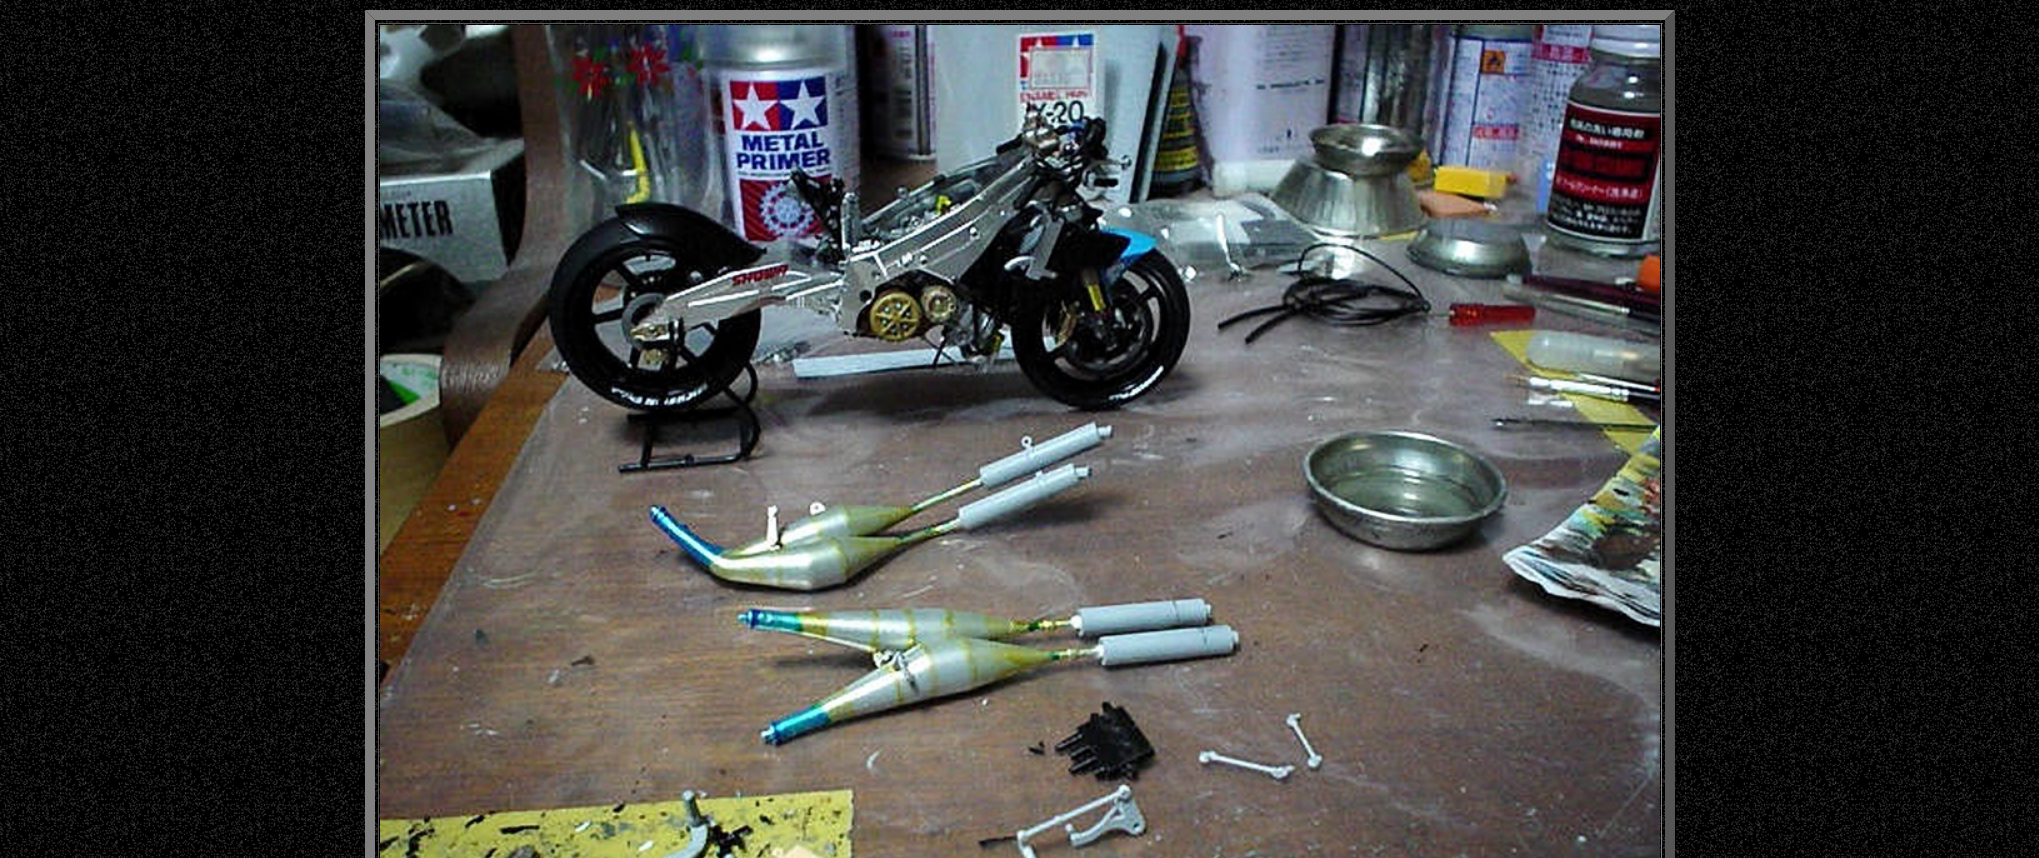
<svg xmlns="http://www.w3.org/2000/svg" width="2039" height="858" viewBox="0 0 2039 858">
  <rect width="100%" height="100%" fill="#ffffff"/>
  <image x="0" y="0" width="2039" height="858" href="img1.png"/>
  <path d="M365 10H1675L1665 20H375Z" fill="#808080"/>
  <path d="M1675 10V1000L1665 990V20Z" fill="#555555"/>
  <path d="M365 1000V10L375 20V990Z" fill="#808080"/>
  <rect x="378" y="23" width="1285" height="1" fill="#555555"/>
  <rect x="1661" y="23" width="1" height="835" fill="#808080"/>
  <rect x="378" y="23" width="1" height="835" fill="#555555"/>
  <image x="380" y="25" width="1280" height="833" href="img2.png"/>
</svg>
